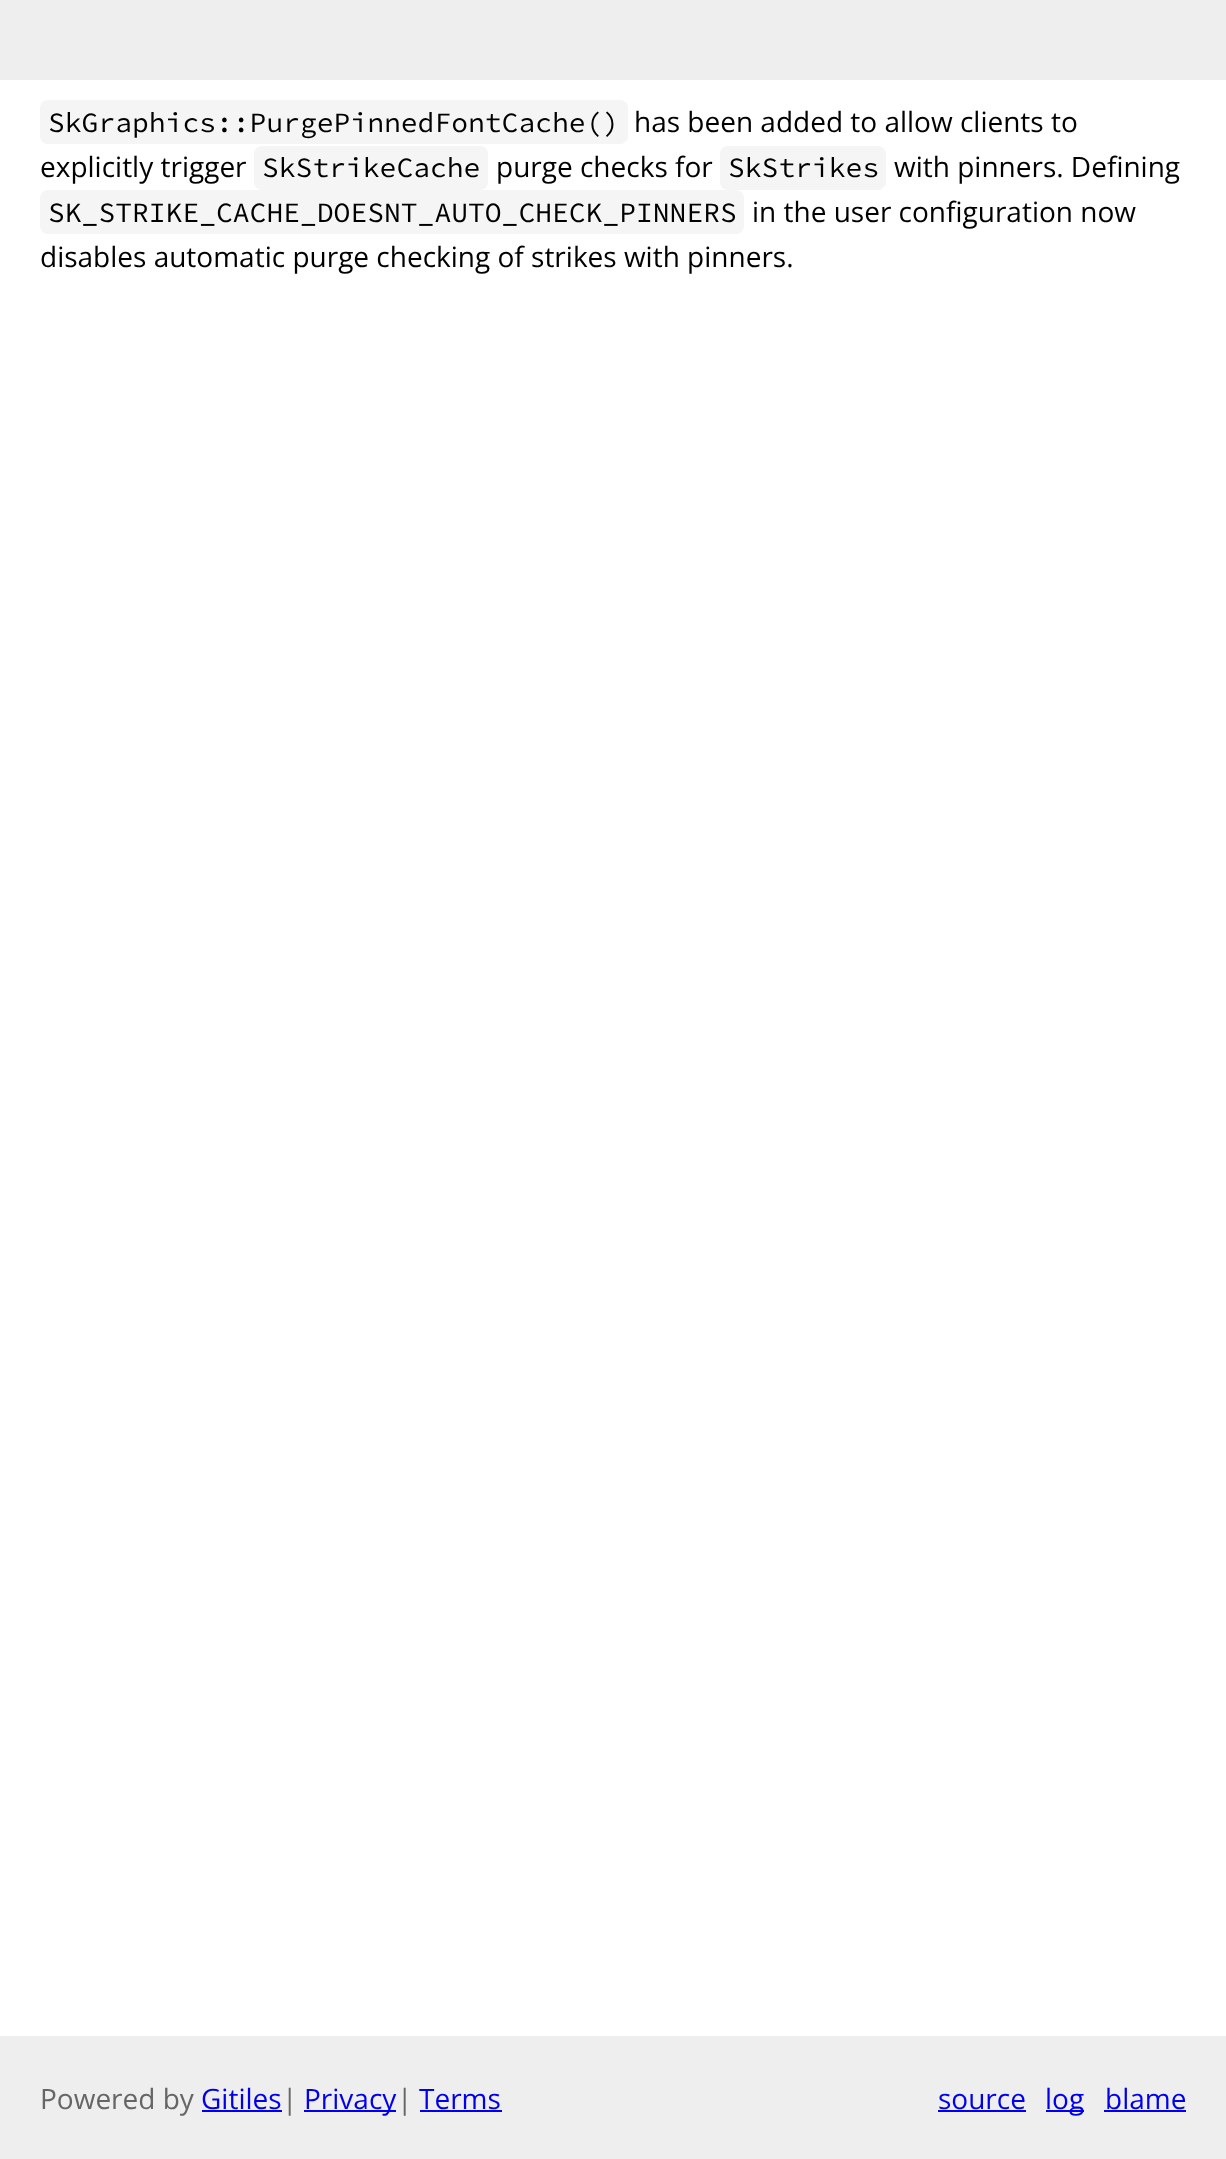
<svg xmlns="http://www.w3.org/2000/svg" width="1226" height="2159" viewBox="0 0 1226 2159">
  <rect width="100%" height="100%" fill="#ffffff"/>
  <rect x="0" y="0" width="1226" height="80" fill="#eeeeee"/>
  <rect x="40" y="100" width="588" height="44" rx="8" fill="#f5f5f5"/>
  <text x="48" y="132" font-family="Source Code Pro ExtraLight" font-size="28" font-weight="200" fill="#000000">SkGraphics::PurgePinnedFontCache()</text>
  <text x="634" y="132" font-family="Open Sans" font-size="28" fill="#000000">has been added to allow clients to</text>
  <text x="40" y="177" font-family="Open Sans" font-size="28" fill="#000000">explicitly trigger</text>
  <rect x="254" y="146" width="234" height="44" rx="8" fill="#f5f5f5"/>
  <text x="262" y="177" font-family="Source Code Pro ExtraLight" font-size="28" font-weight="200" fill="#000000">SkStrikeCache</text>
  <text x="496" y="177" font-family="Open Sans" font-size="28" fill="#000000">purge checks for</text>
  <rect x="720" y="146" width="166" height="44" rx="8" fill="#f5f5f5"/>
  <text x="728" y="177" font-family="Source Code Pro ExtraLight" font-size="28" font-weight="200" fill="#000000">SkStrikes</text>
  <text x="894" y="177" font-family="Open Sans" font-size="28" fill="#000000">with pinners. Defining</text>
  <rect x="40" y="190" width="704" height="44" rx="8" fill="#f5f5f5"/>
  <text x="48" y="222" font-family="Source Code Pro ExtraLight" font-size="28" font-weight="200" fill="#000000">SK_STRIKE_CACHE_DOESNT_AUTO_CHECK_PINNERS</text>
  <text x="752" y="222" font-family="Open Sans" font-size="28" fill="#000000">in the user configuration now</text>
  <text x="40" y="267" font-family="Open Sans" font-size="28" fill="#000000">disables automatic purge checking of strikes with pinners.</text>
  <rect x="0" y="2036" width="1226" height="123" fill="#eeeeee"/>
  <text x="40" y="2109" font-family="Open Sans" font-size="28" fill="#666666">Powered by</text>
  <text x="201" y="2109" font-family="Open Sans" font-size="28" fill="#0000ee">Gitiles</text>
  <rect x="202" y="2110" width="80" height="2" fill="#0000ee"/>
  <text x="282" y="2109" font-family="Open Sans" font-size="28" fill="#666666">|</text>
  <rect x="304" y="2110" width="92" height="2" fill="#0000ee"/>
  <text x="304" y="2109" font-family="Open Sans" font-size="28" fill="#0000ee">Privacy</text>
  <text x="397" y="2109" font-family="Open Sans" font-size="28" fill="#666666">|</text>
  <text x="419" y="2109" font-family="Open Sans" font-size="28" fill="#0000ee">Terms</text>
  <rect x="420" y="2110" width="82" height="2" fill="#0000ee"/>
  <text x="938" y="2109" font-family="Open Sans" font-size="28" fill="#0000ee">source</text>
  <rect x="938" y="2110" width="88" height="2" fill="#0000ee"/>
  <rect x="1046" y="2110" width="38" height="2" fill="#0000ee"/>
  <text x="1045" y="2109" font-family="Open Sans" font-size="28" fill="#0000ee">log</text>
  <text x="1105" y="2109" font-family="Open Sans" font-size="28" fill="#0000ee">blame</text>
  <rect x="1104" y="2110" width="82" height="2" fill="#0000ee"/>
</svg>
